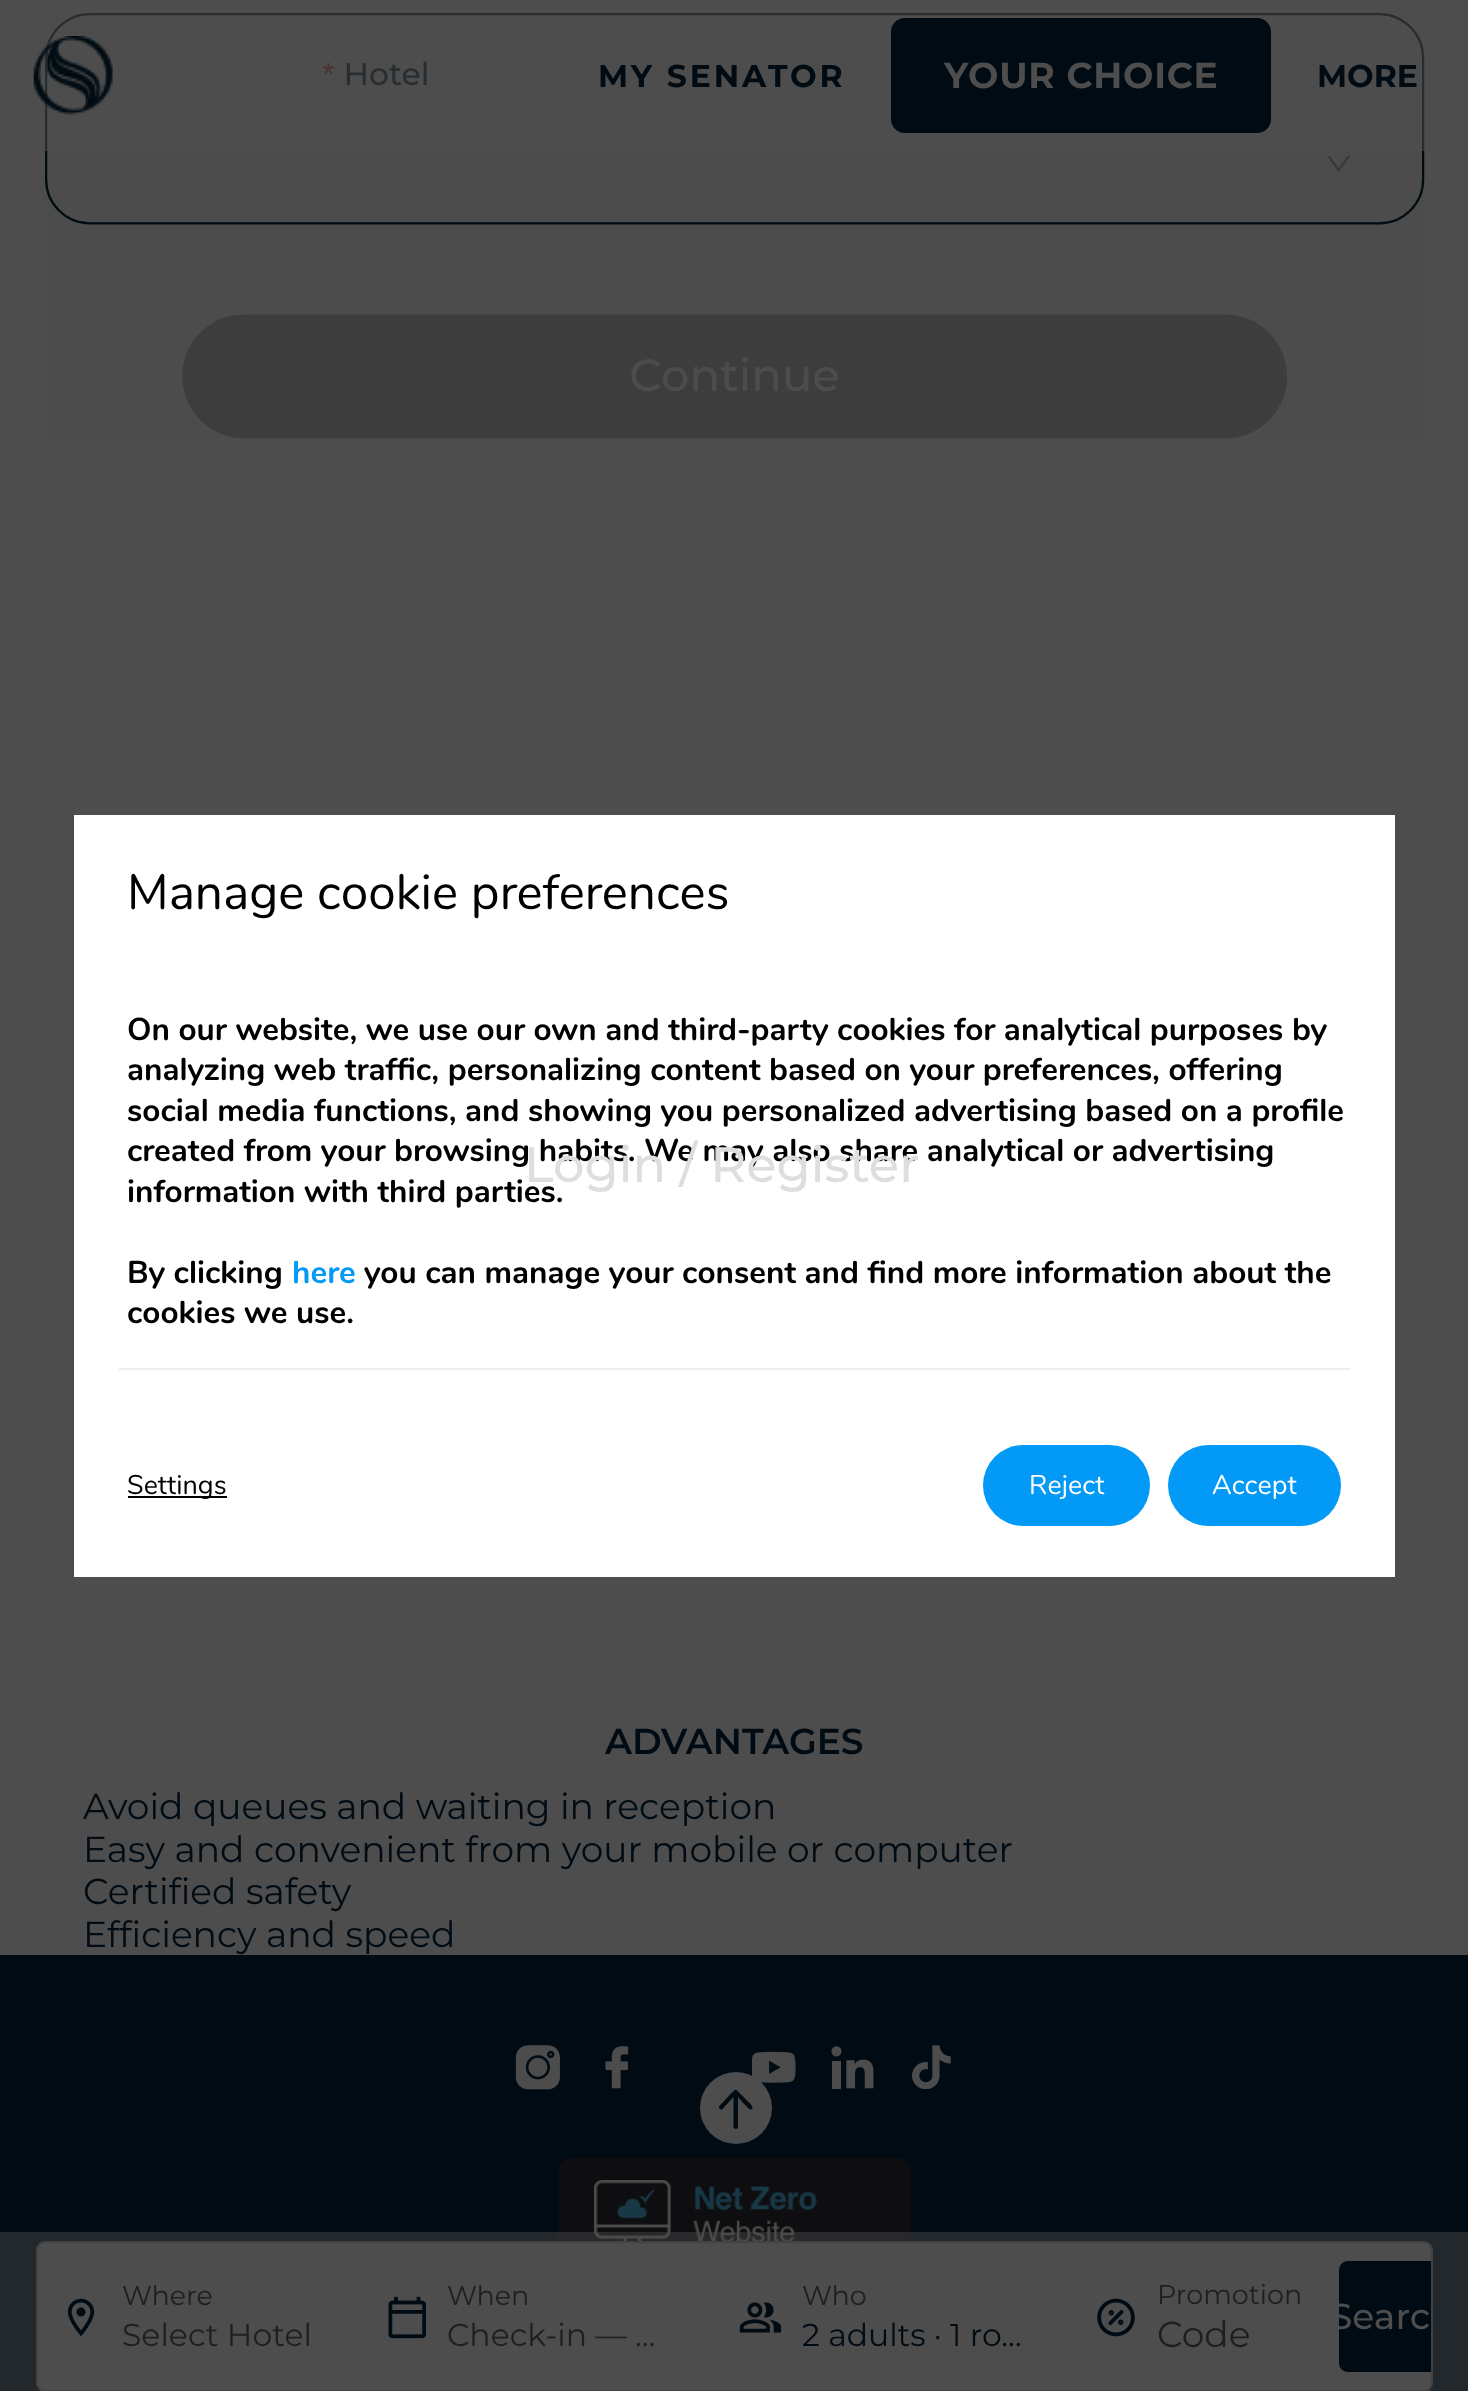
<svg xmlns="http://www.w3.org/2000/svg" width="1468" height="2391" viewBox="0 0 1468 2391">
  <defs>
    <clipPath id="clip1"><rect x="1339" y="2261" width="108" height="111" rx="9"/></clipPath>
  </defs>
  <rect width="100%" height="100%" fill="#4d4d4d"/>
  <image x="45" y="13" width="1380" height="426" href="img6.png"/>
  <rect x="45" y="13" width="1380" height="138" fill="#4d4d4d" fill-opacity="0.5"/>
  <image x="33" y="36" width="80" height="79" href="img1.png"/>
  <text x="598" y="87" font-family="Montserrat" font-size="31.5" font-weight="bold" letter-spacing="2.9" fill="#000b13">MY SENATOR</text>
  <rect x="891" y="18" width="380" height="115" rx="14" fill="#000b13"/>
  <text x="944" y="88" font-family="Montserrat" font-size="36" font-weight="bold" letter-spacing="0.75" fill="#4d4d4d">YOUR CHOICE</text>
  <text x="1317" y="87" font-family="Montserrat" font-size="31.5" font-weight="bold" fill="#000b13">MORE</text>
  <rect x="0" y="1955" width="1468" height="436" fill="#000b13"/>
  <image x="558" y="2157" width="354" height="84" href="img12.png"/>
  <rect x="0" y="2232" width="1468" height="159" fill="#4d4d4d" fill-opacity="0.44"/>
  <rect x="37" y="2242" width="1395" height="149" rx="8" fill="#4d4d4d" stroke="#424242" stroke-width="2"/>
  <image x="67" y="2298" width="28" height="39" href="img2.png"/>
  <text x="122" y="2305" font-family="Montserrat" font-size="27" fill="#1f1f1f">Where</text>
  <text x="122" y="2346" font-family="Montserrat" font-size="31.5" fill="#1f1f1f">Select Hotel</text>
  <image x="388" y="2296" width="38" height="43" href="img3.png"/>
  <text x="447" y="2305" font-family="Montserrat" font-size="27" fill="#1f1f1f">When</text>
  <text x="447" y="2346" font-family="Montserrat" font-size="31.5" fill="#1f1f1f">Check-in — …</text>
  <image x="739" y="2302" width="43" height="31" href="img4.png"/>
  <text x="802" y="2305" font-family="Montserrat" font-size="27" fill="#1f1f1f">Who</text>
  <text x="802" y="2346" font-family="Montserrat" font-size="31.5" fill="#000b13">2 adults · 1 ro…</text>
  <image x="1097" y="2298" width="38" height="39" href="img5.png"/>
  <text x="1157" y="2304" font-family="Montserrat" font-size="27" fill="#1f1f1f">Promotion</text>
  <text x="1157" y="2347" font-family="Montserrat" font-size="36" fill="#1f1f1f">Code</text>
  <path d="M1348 2261H1431V2372H1348C1343 2372 1339 2368 1339 2363V2270C1339 2265 1343 2261 1348 2261Z" fill="#000b13"/>
  <g clip-path="url(#clip1)">
    <text x="1330" y="2329" font-family="Montserrat" font-size="36" font-weight="500" fill="#4d4d4d">Searc</text>
  </g>
  <rect x="74" y="815" width="1321" height="762" fill="#ffffff"/>
  <text x="127" y="909" font-family="Nunito" font-size="49.5" fill="#000000">Manage cookie preferences</text>
  <text x="127" y="1040" font-family="Nunito" font-size="31.5" font-weight="bold" fill="#000000">On our website, we use our own and third-party cookies for analytical purposes by</text>
  <text x="127" y="1080" font-family="Nunito" font-size="31.5" font-weight="bold" fill="#000000">analyzing web traffic, personalizing content based on your preferences, offering</text>
  <text x="127" y="1121" font-family="Nunito" font-size="31.5" font-weight="bold" fill="#000000">social media functions, and showing you personalized advertising based on a profile</text>
  <text x="127" y="1161" font-family="Nunito" font-size="31.5" font-weight="bold" fill="#000000">created from your browsing habits. We may also share analytical or advertising</text>
  <text x="127" y="1202" font-family="Nunito" font-size="31.5" font-weight="bold" fill="#000000">information with third parties.</text>
  <text x="127" y="1283" font-family="Nunito" font-size="31.5" font-weight="bold" fill="#000000">By clicking</text>
  <text x="292" y="1283" font-family="Nunito" font-size="31.5" font-weight="bold" fill="#0399f6">here</text>
  <text x="364" y="1283" font-family="Nunito" font-size="31.5" font-weight="bold" fill="#000000">you can manage your consent and find more information about the</text>
  <text x="127" y="1323" font-family="Nunito" font-size="31.5" font-weight="bold" fill="#000000">cookies we use.</text>
  <rect x="119" y="1368" width="1231" height="2" fill="#eeeeee"/>
  <rect x="128" y="1496" width="99" height="2" fill="#000000"/>
  <text x="127" y="1494" font-family="Nunito" font-size="27" fill="#000000">Settings</text>
  <rect x="983" y="1445" width="167" height="81" rx="40.5" fill="#0399f6"/>
  <text x="1029" y="1494" font-family="Nunito" font-size="27" fill="#ffffff">Reject</text>
  <rect x="1168" y="1445" width="173" height="81" rx="40.5" fill="#0399f6"/>
  <text x="1212" y="1494" font-family="Nunito" font-size="27" fill="#ffffff">Accept</text>
  <text x="524" y="1182" font-family="Montserrat" font-size="49.5" font-weight="500" fill="#dedede">Login / Register</text>
  <text x="605" y="1754" font-family="Montserrat" font-size="36" font-weight="600" fill="#000b13">ADVANTAGES</text>
  <text x="83" y="1819" font-family="Montserrat" font-size="36" fill="#000b13">Avoid queues and waiting in reception</text>
  <text x="83" y="1862" font-family="Montserrat" font-size="36" fill="#000b13">Easy and convenient from your mobile or computer</text>
  <text x="83" y="1904" font-family="Montserrat" font-size="36" fill="#000b13">Certified safety</text>
  <text x="83" y="1947" font-family="Montserrat" font-size="36" fill="#000b13">Efficiency and speed</text>
  <image x="515" y="2045" width="45" height="45" href="img7.png"/>
  <image x="605" y="2046" width="24" height="43" href="img8.png"/>
  <image x="752" y="2051" width="44" height="32" href="img9.png"/>
  <image x="831" y="2046" width="43" height="43" href="img10.png"/>
  <image x="912" y="2045" width="39" height="44" href="img11.png"/>
  <circle cx="736" cy="2108" r="36" fill="#4d4d4d"/>
  <path d="M719.5 2106L731.5 2093C736 2088.5 735.5 2088.5 739.5 2093L747 2100.5C748.5 2102 752.5 2105.5 752.5 2107.5L752 2109C749.5 2111 746.5 2106 745 2105L738 2097V2127C738 2129 735.5 2129.5 734.5 2128.5L733.5 2127.5V2097L722 2109.5C720 2110 718 2107.5 719.5 2106Z" fill="#000b13"/>
</svg>
